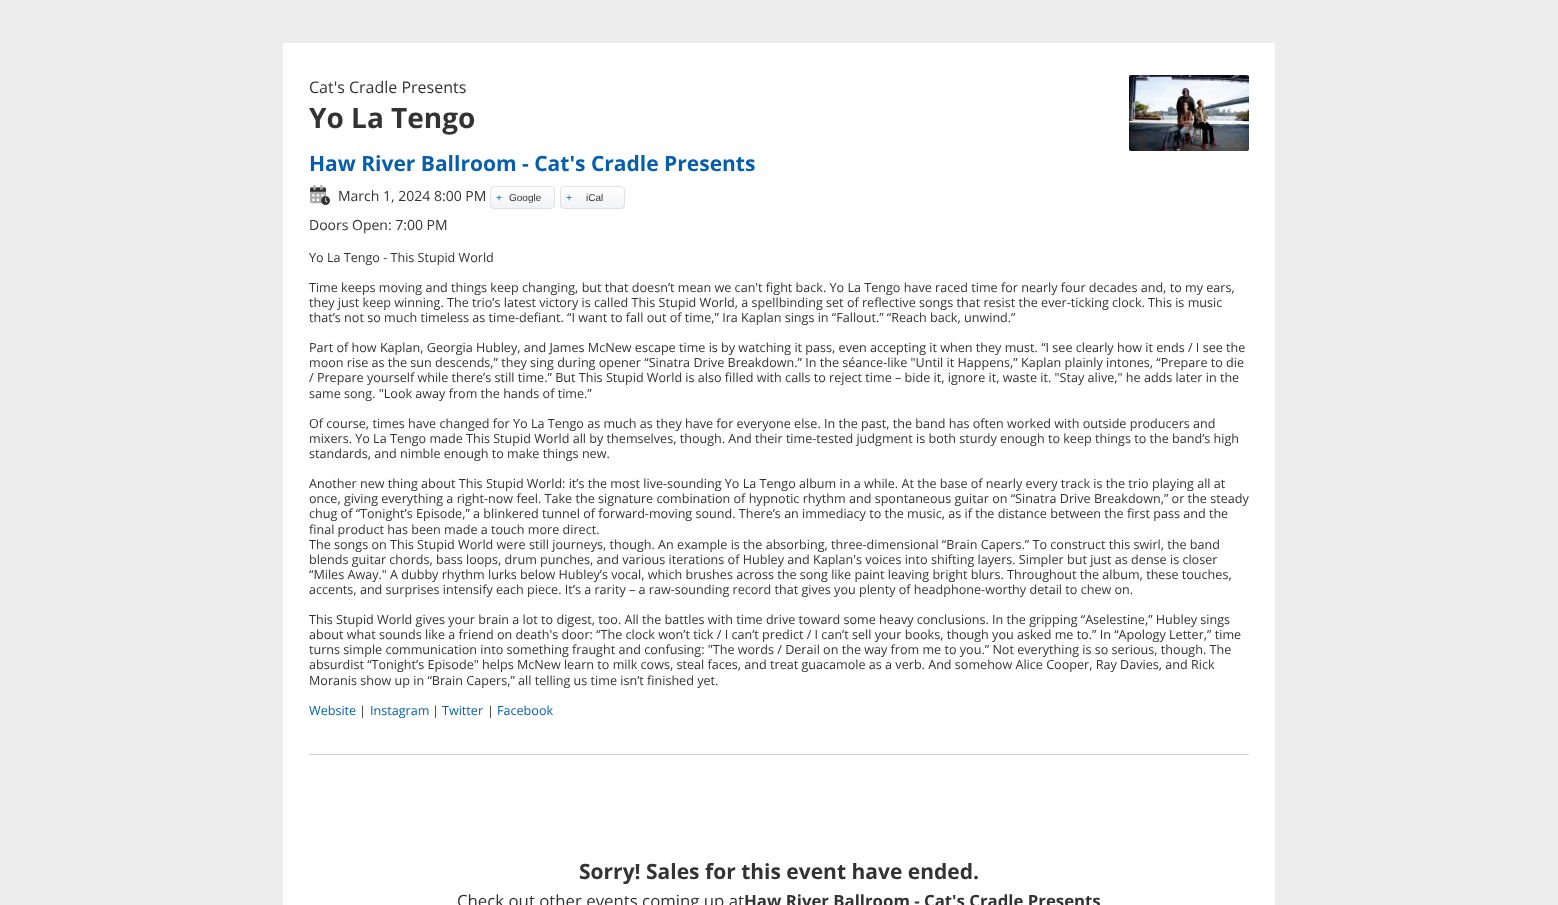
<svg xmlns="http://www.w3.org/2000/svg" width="1558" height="905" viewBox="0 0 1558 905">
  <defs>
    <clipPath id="clip1"><rect x="490" y="186" width="65" height="23" rx="4"/></clipPath>
    <linearGradient id="g1" gradientUnits="userSpaceOnUse" x1="523" y1="187" x2="523" y2="208"><stop offset="0" stop-color="#ffffff"/><stop offset="1" stop-color="#f1f2f7"/></linearGradient>
    <clipPath id="clip2"><rect x="560" y="186" width="65" height="23" rx="4"/></clipPath>
    <linearGradient id="g2" gradientUnits="userSpaceOnUse" x1="593" y1="187" x2="593" y2="208"><stop offset="0" stop-color="#ffffff"/><stop offset="1" stop-color="#f1f2f7"/></linearGradient>
  </defs>
  <rect width="100%" height="100%" fill="#ededed"/>
  <rect x="283" y="43" width="992" height="862" fill="#ffffff"/>
  <text x="309" y="93" font-family="Open Sans" font-size="16" fill="#333333">Cat's Cradle Presents</text>
  <image x="1129" y="75" width="120" height="76" href="img1.png"/>
  <text x="309" y="128" font-family="Open Sans" font-size="28" font-weight="bold" fill="#333333">Yo La Tengo</text>
  <text x="309" y="171" font-family="Open Sans" font-size="21" font-weight="bold" fill="#065fae">Haw River Ballroom - Cat's Cradle Presents</text>
  <image x="310" y="187" width="16" height="5" href="img3.png"/>
  <image x="310" y="185" width="16" height="19" href="img2.png"/>
  <image x="321" y="196" width="9" height="9" href="img4.png"/>
  <text x="338" y="201" font-family="Open Sans" font-size="14" fill="#333333">March 1, 2024 8:00 PM</text>
  <g clip-path="url(#clip1)">
    <rect x="490" y="187" width="65" height="21" fill="url(#g1)"/>
  </g>
  <rect x="490.5" y="186.5" width="64" height="22" rx="3.5" fill="none" stroke="#e1e1e1"/>
  <text x="496" y="201" font-family="Liberation Sans" font-size="10" font-style="italic" fill="#065fae">+</text>
  <text x="509" y="201" font-family="Liberation Sans" font-size="10" fill="#333333">Google</text>
  <g clip-path="url(#clip2)">
    <rect x="560" y="187" width="65" height="21" fill="url(#g2)"/>
  </g>
  <rect x="560.5" y="186.5" width="64" height="22" rx="3.5" fill="none" stroke="#e1e1e1"/>
  <text x="566" y="201" font-family="Liberation Sans" font-size="10" font-style="italic" fill="#065fae">+</text>
  <text x="586" y="201" font-family="Liberation Sans" font-size="10" fill="#333333">iCal</text>
  <text x="309" y="230" font-family="Open Sans" font-size="14" fill="#333333">Doors Open: 7:00 PM</text>
  <text x="309" y="262" font-family="Open Sans" font-size="12.6" fill="#333333">Yo La Tengo - This Stupid World</text>
  <text x="309" y="292" font-family="Open Sans" font-size="12.6" fill="#333333">Time keeps moving and things keep changing, but that doesn’t mean we can't fight back. Yo La Tengo have raced time for nearly four decades and, to my ears,</text>
  <text x="309" y="307" font-family="Open Sans" font-size="12.6" fill="#333333">they just keep winning. The trio’s latest victory is called This Stupid World, a spellbinding set of reflective songs that resist the ever-ticking clock. This is music</text>
  <text x="309" y="322" font-family="Open Sans" font-size="12.6" fill="#333333">that’s not so much timeless as time-defiant. “I want to fall out of time,” Ira Kaplan sings in “Fallout.” “Reach back, unwind.”</text>
  <text x="309" y="352" font-family="Open Sans" font-size="12.6" fill="#333333">Part of how Kaplan, Georgia Hubley, and James McNew escape time is by watching it pass, even accepting it when they must. “I see clearly how it ends / I see the</text>
  <text x="309" y="367" font-family="Open Sans" font-size="12.6" fill="#333333">moon rise as the sun descends,” they sing during opener “Sinatra Drive Breakdown.” In the séance-like "Until it Happens,” Kaplan plainly intones, “Prepare to die</text>
  <text x="309" y="382" font-family="Open Sans" font-size="12.6" fill="#333333">/ Prepare yourself while there’s still time.” But This Stupid World is also filled with calls to reject time – bide it, ignore it, waste it. "Stay alive," he adds later in the</text>
  <text x="309" y="398" font-family="Open Sans" font-size="12.6" fill="#333333">same song. "Look away from the hands of time.”</text>
  <text x="309" y="428" font-family="Open Sans" font-size="12.6" fill="#333333">Of course, times have changed for Yo La Tengo as much as they have for everyone else. In the past, the band has often worked with outside producers and</text>
  <text x="309" y="443" font-family="Open Sans" font-size="12.6" fill="#333333">mixers. Yo La Tengo made This Stupid World all by themselves, though. And their time-tested judgment is both sturdy enough to keep things to the band’s high</text>
  <text x="309" y="458" font-family="Open Sans" font-size="12.6" fill="#333333">standards, and nimble enough to make things new.</text>
  <text x="309" y="488" font-family="Open Sans" font-size="12.6" fill="#333333">Another new thing about This Stupid World: it’s the most live-sounding Yo La Tengo album in a while. At the base of nearly every track is the trio playing all at</text>
  <text x="309" y="503" font-family="Open Sans" font-size="12.6" fill="#333333">once, giving everything a right-now feel. Take the signature combination of hypnotic rhythm and spontaneous guitar on “Sinatra Drive Breakdown,” or the steady</text>
  <text x="309" y="518" font-family="Open Sans" font-size="12.6" fill="#333333">chug of “Tonight’s Episode,” a blinkered tunnel of forward-moving sound. There’s an immediacy to the music, as if the distance between the first pass and the</text>
  <text x="309" y="534" font-family="Open Sans" font-size="12.6" fill="#333333">final product has been made a touch more direct.</text>
  <text x="309" y="549" font-family="Open Sans" font-size="12.6" fill="#333333">The songs on This Stupid World were still journeys, though. An example is the absorbing, three-dimensional “Brain Capers.” To construct this swirl, the band</text>
  <text x="309" y="564" font-family="Open Sans" font-size="12.6" fill="#333333">blends guitar chords, bass loops, drum punches, and various iterations of Hubley and Kaplan's voices into shifting layers. Simpler but just as dense is closer</text>
  <text x="309" y="579" font-family="Open Sans" font-size="12.6" fill="#333333">“Miles Away." A dubby rhythm lurks below Hubley’s vocal, which brushes across the song like paint leaving bright blurs. Throughout the album, these touches,</text>
  <text x="309" y="594" font-family="Open Sans" font-size="12.6" fill="#333333">accents, and surprises intensify each piece. It’s a rarity – a raw-sounding record that gives you plenty of headphone-worthy detail to chew on.</text>
  <text x="309" y="624" font-family="Open Sans" font-size="12.6" fill="#333333">This Stupid World gives your brain a lot to digest, too. All the battles with time drive toward some heavy conclusions. In the gripping “Aselestine,” Hubley sings</text>
  <text x="309" y="639" font-family="Open Sans" font-size="12.6" fill="#333333">about what sounds like a friend on death's door: “The clock won’t tick / I can’t predict / I can’t sell your books, though you asked me to.” In “Apology Letter,” time</text>
  <text x="309" y="654" font-family="Open Sans" font-size="12.6" fill="#333333">turns simple communication into something fraught and confusing: "The words / Derail on the way from me to you.” Not everything is so serious, though. The</text>
  <text x="309" y="669" font-family="Open Sans" font-size="12.6" fill="#333333">absurdist “Tonight’s Episode" helps McNew learn to milk cows, steal faces, and treat guacamole as a verb. And somehow Alice Cooper, Ray Davies, and Rick</text>
  <text x="309" y="685" font-family="Open Sans" font-size="12.6" fill="#333333">Moranis show up in “Brain Capers,” all telling us time isn’t finished yet.</text>
  <text x="309" y="715" font-family="Open Sans" font-size="12.6" fill="#065fae">Website</text>
  <text x="359" y="715" font-family="Open Sans" font-size="12.6" fill="#333333">|</text>
  <text x="370" y="715" font-family="Open Sans" font-size="12.6" fill="#065fae">Instagram</text>
  <text x="432" y="715" font-family="Open Sans" font-size="12.6" fill="#333333">|</text>
  <text x="442" y="715" font-family="Open Sans" font-size="12.6" fill="#065fae">Twitter</text>
  <text x="487" y="715" font-family="Open Sans" font-size="12.6" fill="#333333">|</text>
  <text x="497" y="715" font-family="Open Sans" font-size="12.6" fill="#065fae">Facebook</text>
  <rect x="309" y="754" width="940" height="1" fill="#d0d0d0"/>
  <text x="579" y="879" font-family="Open Sans" font-size="21" font-weight="bold" fill="#333333">Sorry! Sales for this event have ended.</text>
  <text x="457" y="907" font-family="Open Sans" font-size="16.8" fill="#333333">Check out other events coming up at</text>
  <text x="744" y="907" font-family="Open Sans" font-size="16.8" font-weight="bold" fill="#333333">Haw River Ballroom - Cat's Cradle Presents</text>
</svg>
